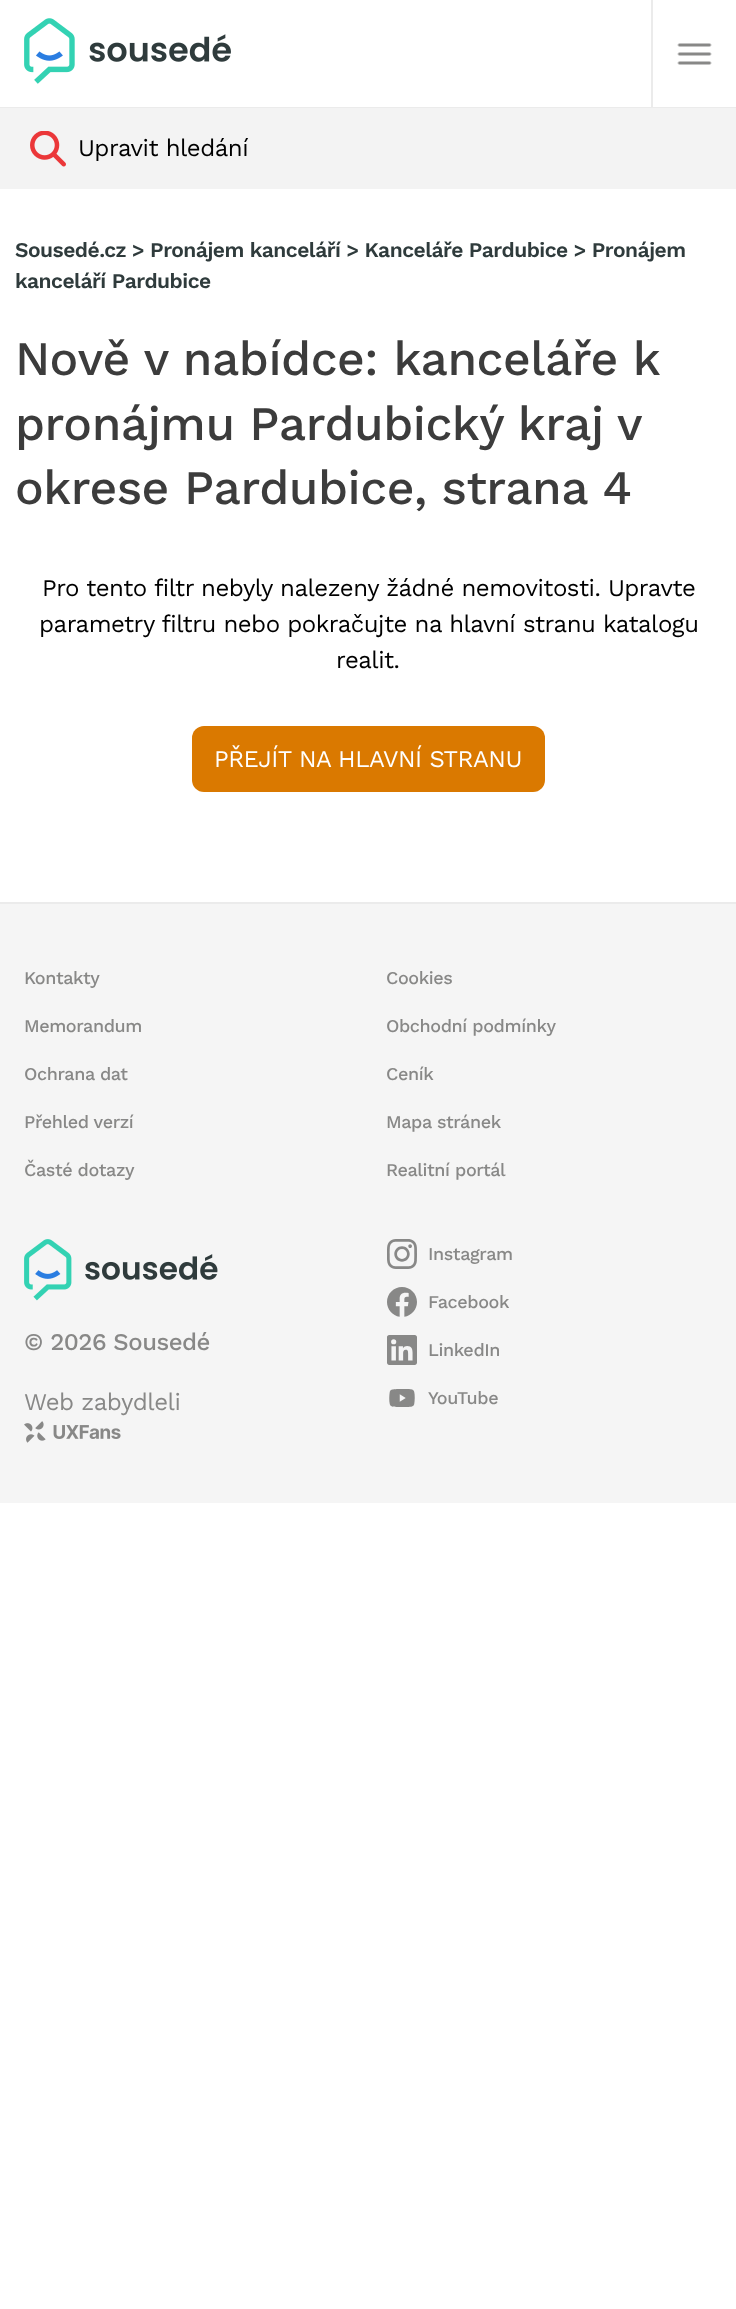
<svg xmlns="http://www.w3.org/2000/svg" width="736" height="2309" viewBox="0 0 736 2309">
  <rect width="100%" height="100%" fill="#ffffff"/>
  <rect x="0" y="107" width="736" height="1" fill="#ebebeb"/>
  <image x="24" y="18" width="207" height="66" href="img1.png"/>
  <rect x="651" y="0" width="2" height="107" fill="#ebebeb"/>
  <image x="677" y="43" width="35" height="22" href="img2.png"/>
  <rect x="0" y="108" width="736" height="81" fill="#f3f3f3"/>
  <image x="30" y="131" width="36" height="36" href="img3.png"/>
  <text x="78" y="156" font-family="Work Sans" font-size="24" letter-spacing="-0.5" fill="#000000">Upravit hledání</text>
  <text x="15" y="257" font-family="Work Sans" font-size="21" font-weight="600" letter-spacing="-0.5" fill="#2f3b3c">Sousedé.cz &gt; Pronájem kanceláří &gt; Kanceláře Pardubice &gt; Pronájem</text>
  <text x="15" y="288" font-family="Work Sans" font-size="21" font-weight="600" letter-spacing="-0.5" fill="#2f3b3c">kanceláří Pardubice</text>
  <text x="15" y="375" font-family="Work Sans" font-size="48" font-weight="500" letter-spacing="-0.5" fill="#3c3c3c">Nově v nabídce: kanceláře k</text>
  <text x="15" y="440" word-spacing="-0.5" font-family="Work Sans" font-size="48" font-weight="500" letter-spacing="-0.5" fill="#3c3c3c">pronájmu Pardubický kraj v</text>
  <text x="15" y="504" font-family="Work Sans" font-size="48" font-weight="500" letter-spacing="-0.5" fill="#3c3c3c">okrese Pardubice, strana 4</text>
  <text x="42" y="596" font-family="Work Sans" font-size="24" letter-spacing="-0.5" fill="#000000">Pro tento filtr nebyly nalezeny žádné nemovitosti. Upravte</text>
  <text x="39" y="632" font-family="Work Sans" font-size="24" letter-spacing="-0.5" fill="#000000">parametry filtru nebo pokračujte na hlavní stranu katalogu</text>
  <text x="336" y="668" font-family="Work Sans" font-size="24" letter-spacing="-0.5" fill="#000000">realit.</text>
  <rect x="192" y="726" width="353" height="66" rx="12" fill="#da7900"/>
  <text x="214" y="767" font-family="Work Sans" font-size="24" letter-spacing="-0.5" fill="#ffffff">PŘEJÍT NA HLAVNÍ STRANU</text>
  <rect x="0" y="904" width="736" height="599" fill="#f5f5f5"/>
  <rect x="0" y="902" width="736" height="2" fill="#ebebeb"/>
  <text x="24" y="984" font-family="Work Sans" font-size="18" font-weight="500" letter-spacing="-0.4" fill="#888887">Kontakty</text>
  <text x="386" y="984" font-family="Work Sans" font-size="18" font-weight="500" letter-spacing="-0.4" fill="#888887">Cookies</text>
  <text x="24" y="1032" font-family="Work Sans" font-size="18" font-weight="500" letter-spacing="-0.4" fill="#888887">Memorandum</text>
  <text x="386" y="1032" font-family="Work Sans" font-size="18" font-weight="500" letter-spacing="-0.4" fill="#888887">Obchodní podmínky</text>
  <text x="24" y="1080" font-family="Work Sans" font-size="18" font-weight="500" letter-spacing="-0.4" fill="#888887">Ochrana dat</text>
  <text x="386" y="1080" font-family="Work Sans" font-size="18" font-weight="500" letter-spacing="-0.4" fill="#888887">Ceník</text>
  <text x="24" y="1128" font-family="Work Sans" font-size="18" font-weight="500" letter-spacing="-0.4" fill="#888887">Přehled verzí</text>
  <text x="386" y="1128" font-family="Work Sans" font-size="18" font-weight="500" letter-spacing="-0.4" fill="#888887">Mapa stránek</text>
  <text x="24" y="1176" font-family="Work Sans" font-size="18" font-weight="500" letter-spacing="-0.4" fill="#888887">Časté dotazy</text>
  <text x="386" y="1176" font-family="Work Sans" font-size="18" font-weight="500" letter-spacing="-0.4" fill="#888887">Realitní portál</text>
  <image x="24" y="1239" width="194" height="62" href="img4.png"/>
  <text x="24" y="1350" font-family="Work Sans" font-size="24" font-weight="500" letter-spacing="-0.5" fill="#888887">© 2026 Sousedé</text>
  <text x="24" y="1410" font-family="Work Sans" font-size="24" letter-spacing="-0.5" fill="#888887">Web zabydleli</text>
  <image x="24" y="1421" width="97" height="22" href="img5.png"/>
  <image x="387" y="1239" width="30" height="30" href="img6.png"/>
  <text x="428" y="1260" font-family="Work Sans" font-size="18" font-weight="500" letter-spacing="-0.4" fill="#888887">Instagram</text>
  <image x="387" y="1287" width="30" height="30" href="img7.png"/>
  <text x="428" y="1308" font-family="Work Sans" font-size="18" font-weight="500" letter-spacing="-0.4" fill="#888887">Facebook</text>
  <image x="387" y="1335" width="30" height="30" href="img8.png"/>
  <text x="428" y="1356" font-family="Work Sans" font-size="18" font-weight="500" letter-spacing="-0.4" fill="#888887">LinkedIn</text>
  <image x="389" y="1389" width="26" height="18" href="img9.png"/>
  <text x="428" y="1404" font-family="Work Sans" font-size="18" font-weight="500" letter-spacing="-0.4" fill="#888887">YouTube</text>
</svg>
